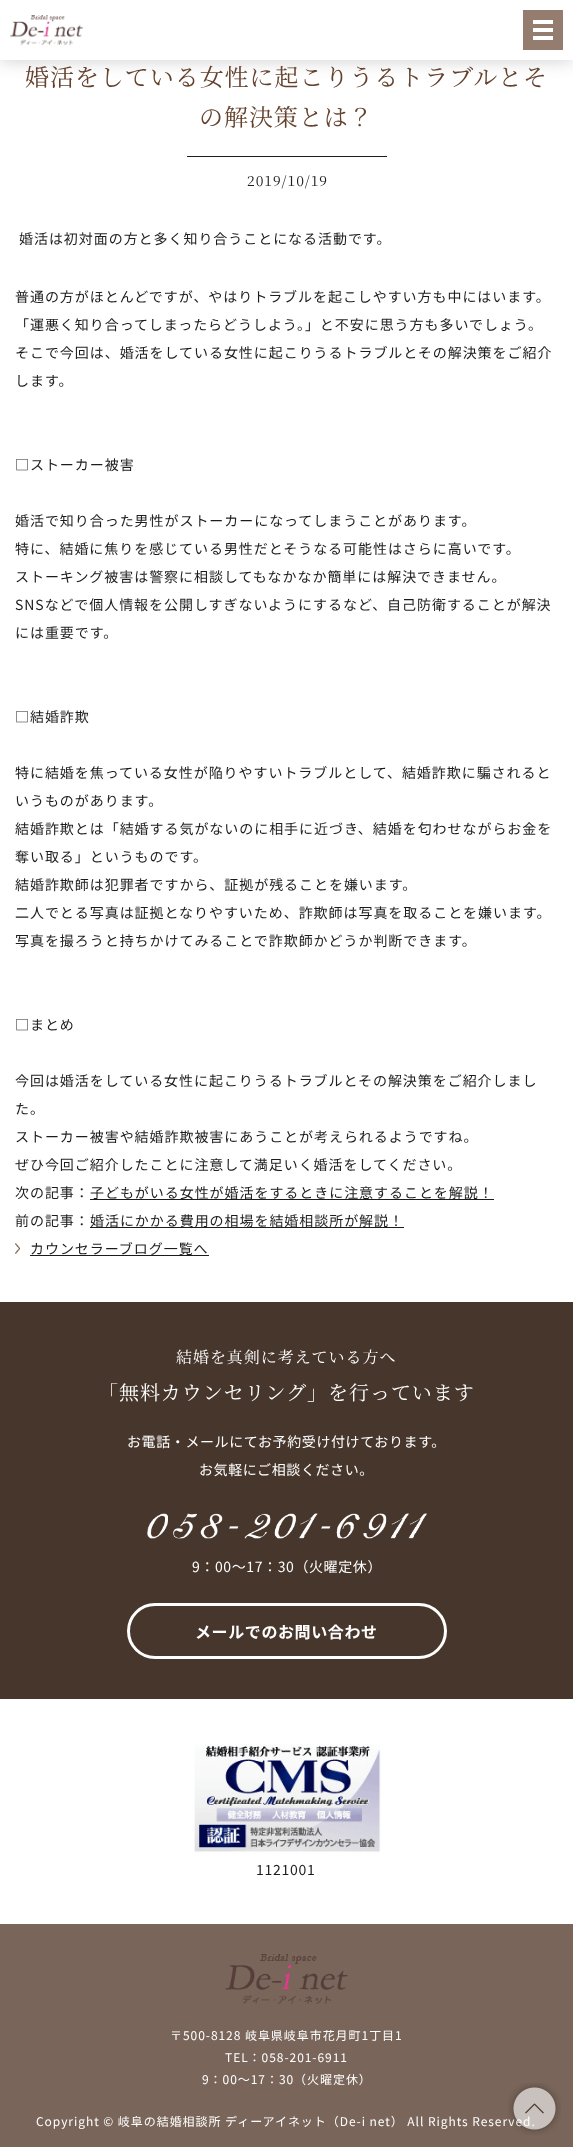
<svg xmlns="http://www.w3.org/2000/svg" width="573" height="2147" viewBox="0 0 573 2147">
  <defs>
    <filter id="blur1" x="-50%" y="-200%" width="200%" height="500%"><feGaussianBlur stdDeviation="9"/></filter>
  </defs>
  <rect width="100%" height="100%" fill="#ffffff"/>
  <rect x="0" y="0" width="573" height="60" fill="#000000" fill-opacity="0.2" filter="url(#blur1)"/>
  <rect x="0" y="0" width="573" height="60" fill="#ffffff"/>
  <image x="10" y="15" width="73" height="30" href="img1.png"/>
  <image x="523" y="10" width="40" height="40" href="img2.png"/>
  <text x="25" y="86" font-family="Noto Serif JP" font-size="24" letter-spacing="0.95" fill="#64412c">婚活をしている女性に起こりうるトラブルとそ</text>
  <text x="199" y="126" font-family="Noto Serif JP" font-size="24" letter-spacing="0.95" fill="#64412c">の解決策とは？</text>
  <rect x="187" y="156" width="200" height="1" fill="#1c1c1c"/>
  <text x="247" y="186" font-family="Noto Serif JP" font-size="14" letter-spacing="0.95" fill="#1c1c1c">2019/10/19</text>
  <text x="19" y="244" font-family="Noto Sans JP" font-size="14" letter-spacing="0.95" fill="#1c1c1c">婚活は初対面の方と多く知り合うことになる活動です。</text>
  <text x="15" y="302" font-family="Noto Sans JP" font-size="14" letter-spacing="0.95" fill="#1c1c1c">普通の方がほとんどですが、やはりトラブルを起こしやすい方も中にはいます。</text>
  <text x="15" y="330" font-family="Noto Sans JP" font-size="14" letter-spacing="0.95" fill="#1c1c1c">「運悪く知り合ってしまったらどうしよう。」と不安に思う方も多いでしょう。</text>
  <text x="15" y="358" font-family="Noto Sans JP" font-size="14" letter-spacing="0.95" fill="#1c1c1c">そこで今回は、婚活をしている女性に起こりうるトラブルとその解決策をご紹介</text>
  <text x="15" y="386" font-family="Noto Sans JP" font-size="14" letter-spacing="0.95" fill="#1c1c1c">します。</text>
  <text x="15" y="470" font-family="Noto Sans JP" font-size="14" letter-spacing="0.95" fill="#1c1c1c">□ストーカー被害</text>
  <text x="15" y="526" font-family="Noto Sans JP" font-size="14" letter-spacing="0.95" fill="#1c1c1c">婚活で知り合った男性がストーカーになってしまうことがあります。</text>
  <text x="15" y="554" font-family="Noto Sans JP" font-size="14" letter-spacing="0.95" fill="#1c1c1c">特に、結婚に焦りを感じている男性だとそうなる可能性はさらに高いです。</text>
  <text x="15" y="582" font-family="Noto Sans JP" font-size="14" letter-spacing="0.95" fill="#1c1c1c">ストーキング被害は警察に相談してもなかなか簡単には解決できません。</text>
  <text x="15" y="610" font-family="Noto Sans JP" font-size="14" letter-spacing="0.95" fill="#1c1c1c">SNSなどで個人情報を公開しすぎないようにするなど、自己防衛することが解決</text>
  <text x="15" y="638" font-family="Noto Sans JP" font-size="14" letter-spacing="0.95" fill="#1c1c1c">には重要です。</text>
  <text x="15" y="722" font-family="Noto Sans JP" font-size="14" letter-spacing="0.95" fill="#1c1c1c">□結婚詐欺</text>
  <text x="15" y="778" font-family="Noto Sans JP" font-size="14" letter-spacing="0.95" fill="#1c1c1c">特に結婚を焦っている女性が陥りやすいトラブルとして、結婚詐欺に騙されると</text>
  <text x="15" y="806" font-family="Noto Sans JP" font-size="14" letter-spacing="0.95" fill="#1c1c1c">いうものがあります。</text>
  <text x="15" y="834" font-family="Noto Sans JP" font-size="14" letter-spacing="0.95" fill="#1c1c1c">結婚詐欺とは「結婚する気がないのに相手に近づき、結婚を匂わせながらお金を</text>
  <text x="15" y="862" font-family="Noto Sans JP" font-size="14" letter-spacing="0.95" fill="#1c1c1c">奪い取る」というものです。</text>
  <text x="15" y="890" font-family="Noto Sans JP" font-size="14" letter-spacing="0.95" fill="#1c1c1c">結婚詐欺師は犯罪者ですから、証拠が残ることを嫌います。</text>
  <text x="15" y="918" font-family="Noto Sans JP" font-size="14" letter-spacing="0.95" fill="#1c1c1c">二人でとる写真は証拠となりやすいため、詐欺師は写真を取ることを嫌います。</text>
  <text x="15" y="946" font-family="Noto Sans JP" font-size="14" letter-spacing="0.95" fill="#1c1c1c">写真を撮ろうと持ちかけてみることで詐欺師かどうか判断できます。</text>
  <text x="15" y="1030" font-family="Noto Sans JP" font-size="14" letter-spacing="0.95" fill="#1c1c1c">□まとめ</text>
  <text x="15" y="1086" font-family="Noto Sans JP" font-size="14" letter-spacing="0.95" fill="#1c1c1c">今回は婚活をしている女性に起こりうるトラブルとその解決策をご紹介しまし</text>
  <text x="15" y="1114" font-family="Noto Sans JP" font-size="14" letter-spacing="0.95" fill="#1c1c1c">た。</text>
  <text x="15" y="1142" font-family="Noto Sans JP" font-size="14" letter-spacing="0.95" fill="#1c1c1c">ストーカー被害や結婚詐欺被害にあうことが考えられるようですね。</text>
  <text x="15" y="1170" font-family="Noto Sans JP" font-size="14" letter-spacing="0.95" fill="#1c1c1c">ぜひ今回ご紹介したことに注意して満足いく婚活をしてください。</text>
  <text x="15" y="1198" font-family="Noto Sans JP" font-size="14" letter-spacing="0.95" fill="#1c1c1c">次の記事：</text>
  <rect x="90" y="1199" width="404" height="1" fill="#1c1c1c"/>
  <text x="90" y="1198" font-family="Noto Sans JP" font-size="14" letter-spacing="0.95" fill="#1c1c1c">子どもがいる女性が婚活をするときに注意することを解説！</text>
  <text x="15" y="1226" font-family="Noto Sans JP" font-size="14" letter-spacing="0.95" fill="#1c1c1c">前の記事：</text>
  <rect x="90" y="1227" width="314" height="1" fill="#1c1c1c"/>
  <text x="90" y="1226" font-family="Noto Sans JP" font-size="14" letter-spacing="0.95" fill="#1c1c1c">婚活にかかる費用の相場を結婚相談所が解説！</text>
  <image x="15" y="1243" width="5" height="11" href="img3.png"/>
  <rect x="30" y="1255" width="179" height="1" fill="#1c1c1c"/>
  <text x="30" y="1254" font-family="Noto Sans JP" font-size="14" letter-spacing="0.95" fill="#1c1c1c">カウンセラーブログ一覧へ</text>
  <rect x="0" y="1302" width="573" height="397" fill="#47362c"/>
  <text x="176" y="1363" font-family="Noto Serif JP" font-size="16" letter-spacing="0.95" fill="#ffffff">結婚を真剣に考えている方へ</text>
  <text x="98" y="1400" font-family="Noto Serif JP" font-size="20" letter-spacing="0.95" fill="#ffffff">「無料カウンセリング」を行っています</text>
  <text x="127" y="1447" font-family="Noto Sans JP" font-size="14" letter-spacing="0.6" fill="#ffffff">お電話・メールにてお予約受け付けております。</text>
  <text x="199" y="1475" font-family="Noto Sans JP" font-size="14" letter-spacing="0.6" fill="#ffffff">お気軽にご相談ください。</text>
  <image x="147" y="1513" width="280" height="26" href="img4.png"/>
  <text x="192" y="1572" font-family="Noto Sans JP" font-size="14" letter-spacing="0.6" fill="#ffffff">9：00～17：30（火曜定休）</text>
  <rect x="128.5" y="1604.5" width="317" height="53" rx="26.5" fill="none" stroke="#ffffff" stroke-width="3"/>
  <text x="195" y="1638" font-family="Noto Sans JP" font-size="16" font-weight="bold" letter-spacing="0.6" fill="#ffffff">メールでのお問い合わせ</text>
  <rect x="0" y="1924" width="573" height="223" fill="#79655a"/>
  <image x="194" y="1744" width="187" height="109" href="img5.png"/>
  <text x="256" y="1875" font-family="Noto Sans JP" font-size="14" letter-spacing="0.75" fill="#1c1c1c">1121001</text>
  <image x="225" y="1954" width="123" height="50" href="img6.png"/>
  <text x="170" y="2040" font-family="Noto Sans JP" font-size="12" letter-spacing="0.95" fill="#ffffff">〒500-8128 岐阜県岐阜市花月町1丁目1</text>
  <text x="225" y="2062" font-family="Noto Sans JP" font-size="12" letter-spacing="0.95" fill="#ffffff">TEL：058-201-6911</text>
  <text x="202" y="2084" font-family="Noto Sans JP" font-size="12" letter-spacing="0.95" fill="#ffffff">9：00～17：30（火曜定休）</text>
  <text x="36" y="2126" font-family="Noto Sans JP" font-size="12" letter-spacing="0.95" fill="#ffffff">Copyright © 岐阜の結婚相談所 ディーアイネット（De-i net） All Rights Reserved.</text>
  <image x="508" y="2083" width="53" height="52" href="img7.png"/>
</svg>
